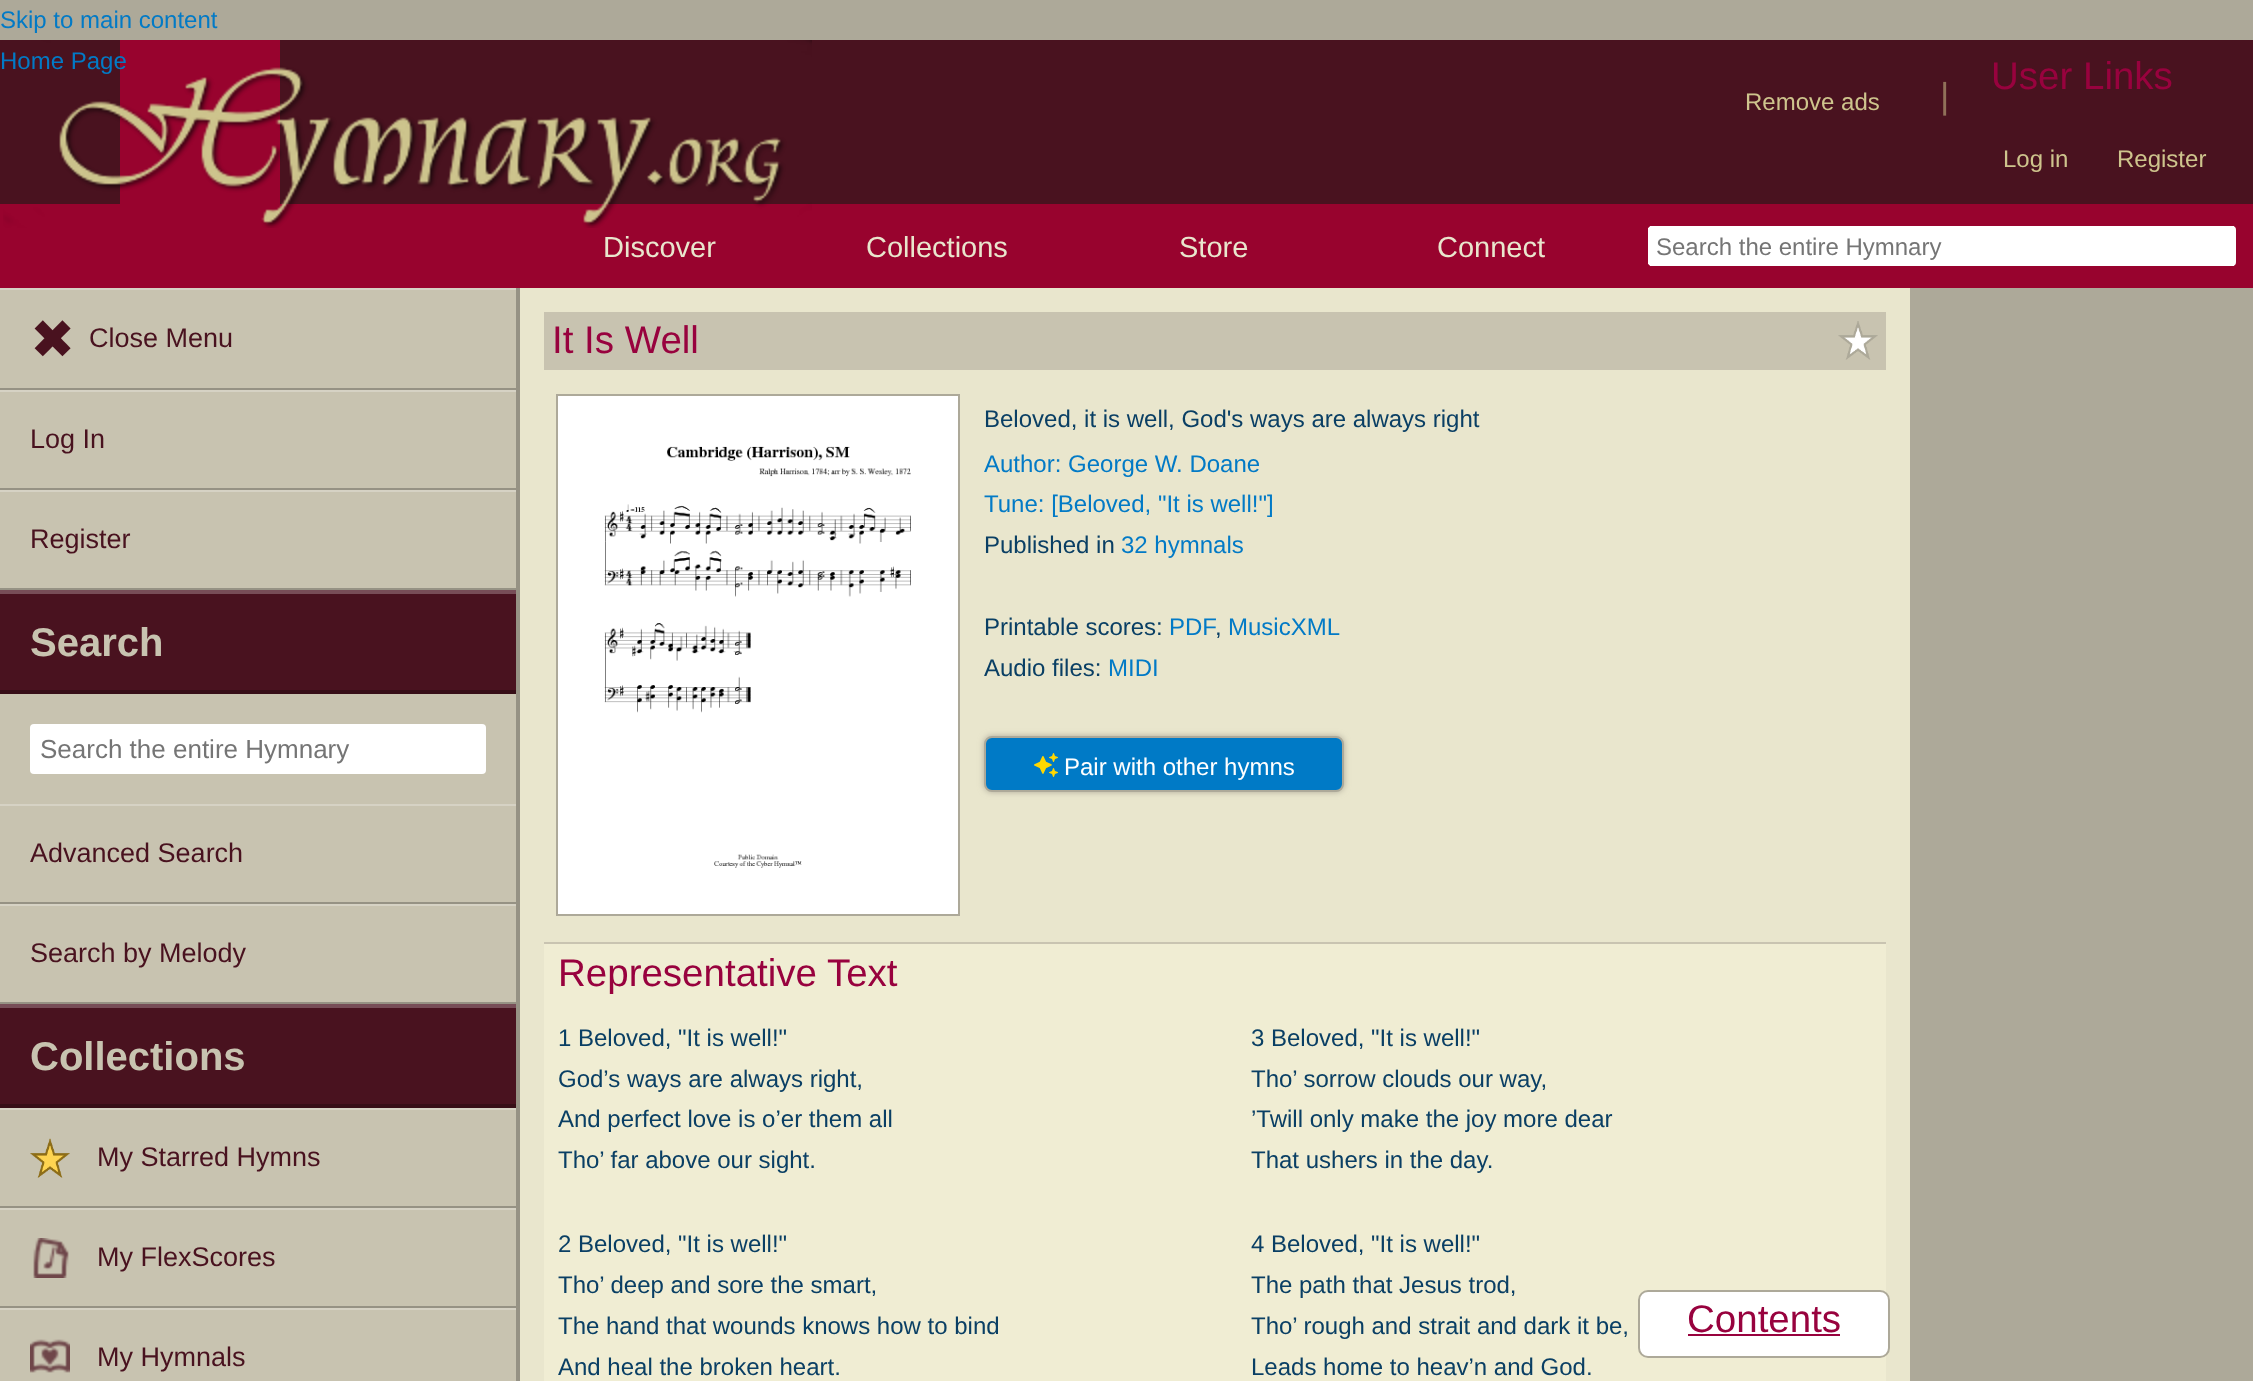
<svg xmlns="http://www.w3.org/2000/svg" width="2253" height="1381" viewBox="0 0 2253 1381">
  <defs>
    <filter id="blur1" x="-50%" y="-200%" width="200%" height="500%"><feGaussianBlur stdDeviation="3"/></filter>
  </defs>
  <rect width="100%" height="100%" fill="#ada999"/>
  <text x="0" y="28" font-family="Liberation Sans" font-size="24" fill="#027ac6">Skip to main content</text>
  <rect x="0" y="40" width="2253" height="164" fill="#49121f"/>
  <rect x="120" y="40" width="160" height="164" fill="#98032e"/>
  <rect x="0" y="204" width="2253" height="84" fill="#98032e"/>
  <image x="3" y="40" width="809" height="188" href="img1.png"/>
  <text x="0" y="69" font-family="Liberation Sans" font-size="24" fill="#027ac6">Home Page</text>
  <text x="1745" y="110" font-family="Liberation Sans" font-size="24" fill="#cec48d">Remove ads</text>
  <text x="1940" y="108" font-family="Liberation Sans" font-size="36" fill="#907159">|</text>
  <text x="1991" y="89" font-family="Liberation Sans" font-size="38.5" fill="#98023e">User Links</text>
  <text x="2003" y="167" font-family="Liberation Sans" font-size="24" fill="#cec48d">Log in</text>
  <text x="2117" y="167" font-family="Liberation Sans" font-size="24" fill="#cec48d">Register</text>
  <text x="603" y="257" font-family="Liberation Sans" font-size="29" fill="#e9e6cd">Discover</text>
  <text x="866" y="257" font-family="Liberation Sans" font-size="29" fill="#e9e6cd">Collections</text>
  <text x="1179" y="257" font-family="Liberation Sans" font-size="29" fill="#e9e6cd">Store</text>
  <text x="1437" y="257" font-family="Liberation Sans" font-size="29" fill="#e9e6cd">Connect</text>
  <rect x="1648" y="226" width="588" height="40" rx="4" fill="#ffffff"/>
  <rect x="1650" y="226" width="584" height="1" fill="#ffffff"/>
  <rect x="1650" y="265" width="584" height="1" fill="#ffffff"/>
  <rect x="1648" y="228" width="1" height="36" fill="#ffffff"/>
  <text x="1656" y="255" font-family="Liberation Sans" font-size="24" fill="#757575">Search the entire Hymnary</text>
  <rect x="0" y="290" width="516" height="1091" fill="#c8c3b0"/>
  <rect x="516" y="288" width="4" height="1093" fill="#969284"/>
  <rect x="0" y="288" width="516" height="2" fill="#d6d2c4"/>
  <rect x="0" y="388" width="516" height="2" fill="#969284"/>
  <text x="30" y="358" font-family="DejaVu Sans" font-size="54" fill="#49121f">✖</text>
  <text x="89" y="347" font-family="Liberation Sans" font-size="27" fill="#49121f">Close Menu</text>
  <rect x="0" y="390" width="516" height="2" fill="#d6d2c4"/>
  <rect x="0" y="488" width="516" height="2" fill="#969284"/>
  <text x="30" y="448" font-family="Liberation Sans" font-size="27" fill="#49121f">Log In</text>
  <rect x="0" y="490" width="516" height="2" fill="#d6d2c4"/>
  <rect x="0" y="588" width="516" height="2" fill="#969284"/>
  <text x="30" y="548" font-family="Liberation Sans" font-size="27" fill="#49121f">Register</text>
  <rect x="0" y="594" width="516" height="96" fill="#49121f"/>
  <rect x="0" y="590" width="516" height="4" fill="#774d57"/>
  <rect x="0" y="690" width="516" height="4" fill="#370e17"/>
  <text x="30" y="656" font-family="Liberation Sans" font-size="40" font-weight="bold" fill="#c8c3b0">Search</text>
  <rect x="30" y="724" width="456" height="50" rx="4" fill="#ffffff"/>
  <text x="40" y="758" font-family="Liberation Sans" font-size="26" fill="#757575">Search the entire Hymnary</text>
  <rect x="0" y="804" width="516" height="2" fill="#d6d2c4"/>
  <rect x="0" y="902" width="516" height="2" fill="#969284"/>
  <text x="30" y="862" font-family="Liberation Sans" font-size="27" fill="#49121f">Advanced Search</text>
  <rect x="0" y="904" width="516" height="2" fill="#d6d2c4"/>
  <rect x="0" y="1002" width="516" height="2" fill="#969284"/>
  <text x="30" y="962" font-family="Liberation Sans" font-size="27" fill="#49121f">Search by Melody</text>
  <rect x="0" y="1008" width="516" height="96" fill="#49121f"/>
  <rect x="0" y="1004" width="516" height="4" fill="#774d57"/>
  <rect x="0" y="1104" width="516" height="4" fill="#370e17"/>
  <text x="30" y="1070" font-family="Liberation Sans" font-size="40" font-weight="bold" fill="#c8c3b0">Collections</text>
  <rect x="0" y="1108" width="516" height="2" fill="#d6d2c4"/>
  <rect x="0" y="1206" width="516" height="2" fill="#969284"/>
  <image x="30" y="1138" width="40" height="40" href="img2.png"/>
  <text x="97" y="1166" font-family="Liberation Sans" font-size="27" fill="#49121f">My Starred Hymns</text>
  <rect x="0" y="1208" width="516" height="2" fill="#d6d2c4"/>
  <rect x="0" y="1306" width="516" height="2" fill="#969284"/>
  <image x="33" y="1238" width="36" height="40" href="img3.png"/>
  <text x="97" y="1266" font-family="Liberation Sans" font-size="27" fill="#49121f">My FlexScores</text>
  <rect x="0" y="1308" width="516" height="2" fill="#d6d2c4"/>
  <image x="30" y="1339" width="40" height="34" href="img4.png"/>
  <text x="97" y="1366" font-family="Liberation Sans" font-size="27" fill="#49121f">My Hymnals</text>
  <rect x="520" y="288" width="1390" height="1093" fill="#e9e6cd"/>
  <rect x="544" y="312" width="1342" height="58" fill="#c8c3b0"/>
  <text x="552" y="353" font-family="Liberation Sans" font-size="38.5" fill="#98023e">It Is Well</text>
  <image x="1838" y="321" width="40" height="39" href="img5.png"/>
  <rect x="557" y="395" width="402" height="520" fill="none" stroke="#ada999" stroke-width="2"/>
  <image x="558" y="396" width="400" height="518" href="img6.png"/>
  <text x="984" y="427" font-family="Liberation Sans" font-size="24" fill="#0a3f64">Beloved, it is well, God's ways are always right</text>
  <text x="984" y="472" font-family="Liberation Sans" font-size="24" fill="#027ac6">Author: George W. Doane</text>
  <text x="984" y="512" font-family="Liberation Sans" font-size="24" fill="#027ac6">Tune: [Beloved, "It is well!"]</text>
  <text x="984" y="553" font-family="Liberation Sans" font-size="24" fill="#0a3f64">Published in</text>
  <text x="1121" y="553" font-family="Liberation Sans" font-size="24" fill="#027ac6">32 hymnals</text>
  <text x="984" y="635" font-family="Liberation Sans" font-size="24" fill="#0a3f64">Printable scores:</text>
  <text x="1169" y="635" font-family="Liberation Sans" font-size="24" fill="#027ac6">PDF</text>
  <text x="1215" y="635" font-family="Liberation Sans" font-size="24" fill="#0a3f64">,</text>
  <text x="1228" y="635" font-family="Liberation Sans" font-size="24" fill="#027ac6">MusicXML</text>
  <text x="984" y="676" font-family="Liberation Sans" font-size="24" fill="#0a3f64">Audio files:</text>
  <text x="1108" y="676" font-family="Liberation Sans" font-size="24" fill="#027ac6">MIDI</text>
  <rect x="984" y="736" width="360" height="56" rx="8" fill="#ada999" filter="url(#blur1)"/>
  <rect x="985" y="737" width="358" height="54" rx="7" fill="#007ac6" stroke="#ada999" stroke-width="2"/>
  <image x="1034" y="753" width="24" height="24" href="img7.png"/>
  <text x="1064" y="775" font-family="Liberation Sans" font-size="24" fill="#ffffff">Pair with other hymns</text>
  <rect x="544" y="944" width="1342" height="437" fill="#f0edd3"/>
  <rect x="544" y="942" width="1342" height="2" fill="#c9c4b1"/>
  <text x="558" y="986" font-family="Liberation Sans" font-size="38.5" fill="#98023e">Representative Text</text>
  <text x="558" y="1046" font-family="Liberation Sans" font-size="24" fill="#0a3f64">1 Beloved, "It is well!"</text>
  <text x="558" y="1087" font-family="Liberation Sans" font-size="24" fill="#0a3f64">God’s ways are always right,</text>
  <text x="558" y="1127" font-family="Liberation Sans" font-size="24" fill="#0a3f64">And perfect love is o’er them all</text>
  <text x="558" y="1168" font-family="Liberation Sans" font-size="24" fill="#0a3f64">Tho’ far above our sight.</text>
  <text x="1251" y="1046" font-family="Liberation Sans" font-size="24" fill="#0a3f64">3 Beloved, "It is well!"</text>
  <text x="1251" y="1087" font-family="Liberation Sans" font-size="24" fill="#0a3f64">Tho’ sorrow clouds our way,</text>
  <text x="1251" y="1127" font-family="Liberation Sans" font-size="24" fill="#0a3f64">’Twill only make the joy more dear</text>
  <text x="1251" y="1168" font-family="Liberation Sans" font-size="24" fill="#0a3f64">That ushers in the day.</text>
  <text x="558" y="1252" font-family="Liberation Sans" font-size="24" fill="#0a3f64">2 Beloved, "It is well!"</text>
  <text x="558" y="1293" font-family="Liberation Sans" font-size="24" fill="#0a3f64">Tho’ deep and sore the smart,</text>
  <text x="558" y="1334" font-family="Liberation Sans" font-size="24" fill="#0a3f64">The hand that wounds knows how to bind</text>
  <text x="558" y="1375" font-family="Liberation Sans" font-size="24" fill="#0a3f64">And heal the broken heart.</text>
  <text x="1251" y="1252" font-family="Liberation Sans" font-size="24" fill="#0a3f64">4 Beloved, "It is well!"</text>
  <text x="1251" y="1293" font-family="Liberation Sans" font-size="24" fill="#0a3f64">The path that Jesus trod,</text>
  <text x="1251" y="1334" font-family="Liberation Sans" font-size="24" fill="#0a3f64">Tho’ rough and strait and dark it be,</text>
  <text x="1251" y="1375" font-family="Liberation Sans" font-size="24" fill="#0a3f64">Leads home to heav’n and God.</text>
  <rect x="1639" y="1291" width="250" height="66" rx="9" fill="#ffffff" stroke="#ada999" stroke-width="2"/>
  <text x="1687" y="1332" font-family="Liberation Sans" font-size="38.5" fill="#98023e">Contents</text>
  <rect x="1688" y="1334" width="152" height="2" fill="#98023e"/>
</svg>
